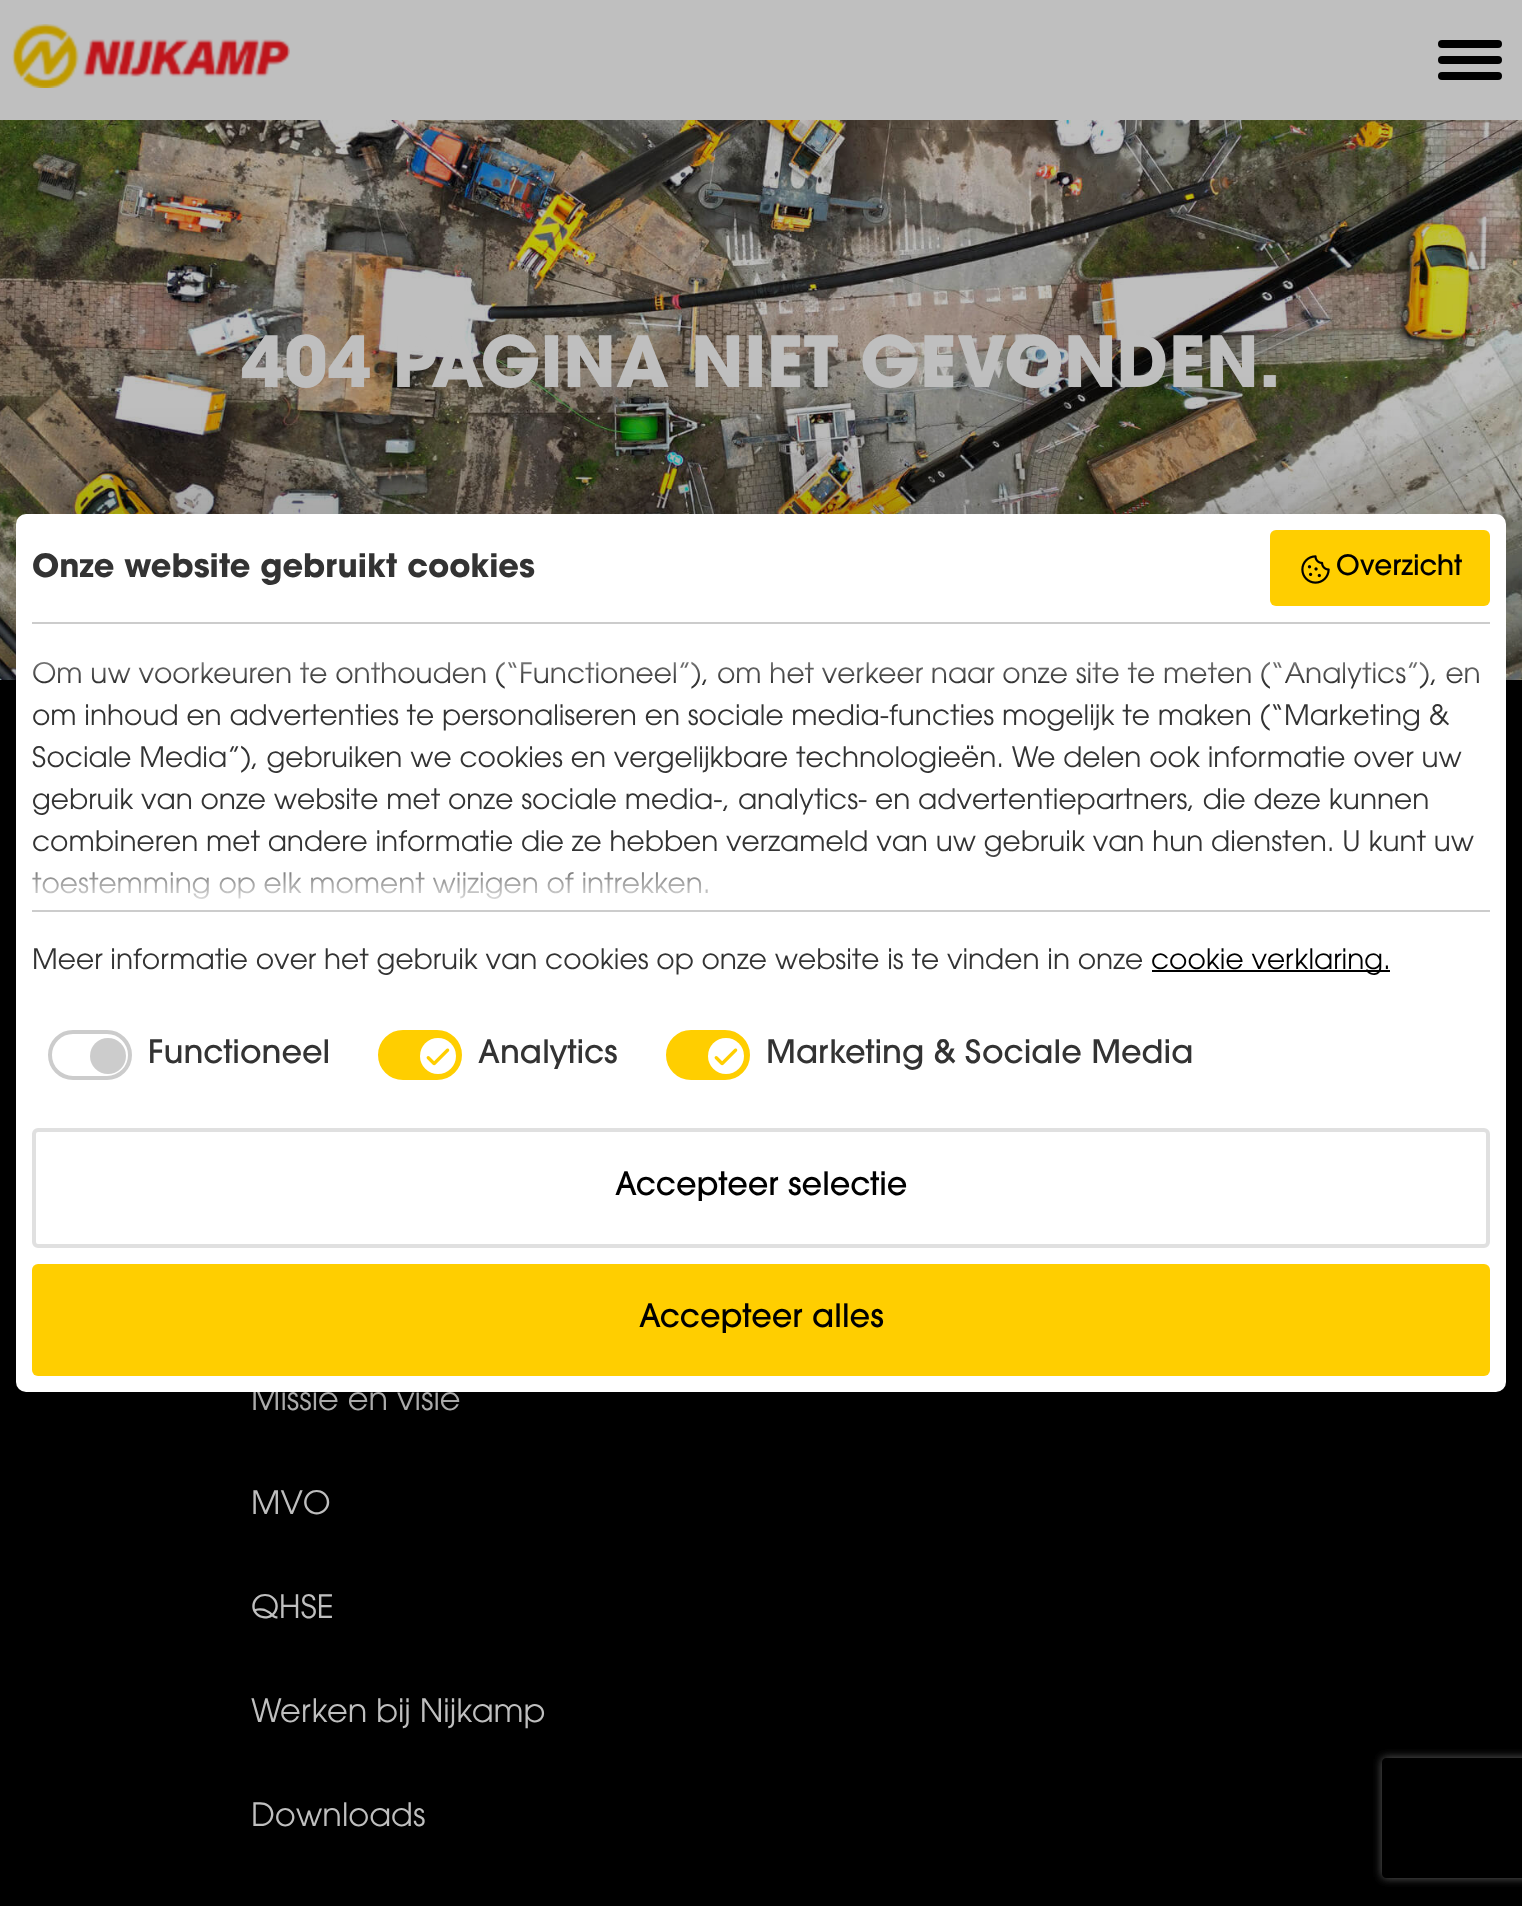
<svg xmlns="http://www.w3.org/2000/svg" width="1522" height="1906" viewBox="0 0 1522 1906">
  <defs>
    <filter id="blur1" x="-50%" y="-200%" width="200%" height="500%"><feGaussianBlur stdDeviation="64"/></filter>
    <linearGradient id="g1" gradientUnits="userSpaceOnUse" x1="761" y1="682" x2="761" y2="622"><stop offset="0" stop-color="#ffffff" stop-opacity="0"/><stop offset="1" stop-color="#ffffff"/></linearGradient>
    <linearGradient id="g2" gradientUnits="userSpaceOnUse" x1="761" y1="850" x2="761" y2="910"><stop offset="0" stop-color="#ffffff" stop-opacity="0"/><stop offset="1" stop-color="#ffffff"/></linearGradient>
    <clipPath id="clip1"><path d="M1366 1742H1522V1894H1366ZM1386 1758H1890C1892 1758 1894 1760 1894 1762V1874C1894 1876 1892 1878 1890 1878H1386C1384 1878 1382 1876 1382 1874V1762C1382 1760 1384 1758 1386 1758Z" clip-rule="evenodd"/></clipPath>
    <filter id="blur2" x="-50%" y="-200%" width="200%" height="500%"><feGaussianBlur stdDeviation="5"/></filter>
  </defs>
  <rect width="100%" height="100%" fill="#bfbfbf"/>
  <image x="12" y="24" width="278" height="64" href="img1.png"/>
  <rect x="1438" y="40" width="64" height="8" rx="4" fill="#000000"/>
  <rect x="1438" y="56" width="64" height="8" rx="4" fill="#000000"/>
  <rect x="1438" y="72" width="64" height="8" rx="4" fill="#000000"/>
  <image x="0" y="120" width="1522" height="560" href="img2.png"/>
  <text x="241" y="387" font-family="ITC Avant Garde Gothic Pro" font-size="70" font-weight="bold" fill="#bfbfbf">404 PAGINA NIET GEVONDEN.</text>
  <rect x="0" y="680" width="1522" height="1226" fill="#000000"/>
  <text x="251" y="1410" font-family="ITC Avant Garde Gothic Pro" font-size="32" font-weight="300" fill="#bfbfbf">Missie en visie</text>
  <text x="251" y="1514" font-family="ITC Avant Garde Gothic Pro" font-size="32" font-weight="300" fill="#bfbfbf">MVO</text>
  <text x="251" y="1618" font-family="ITC Avant Garde Gothic Pro" font-size="32" font-weight="300" fill="#bfbfbf">QHSE</text>
  <text x="251" y="1722" font-family="ITC Avant Garde Gothic Pro" font-size="32" font-weight="300" fill="#bfbfbf">Werken bij Nijkamp</text>
  <text x="251" y="1826" font-family="ITC Avant Garde Gothic Pro" font-size="32" font-weight="300" fill="#bfbfbf">Downloads</text>
  <rect x="16" y="514" width="1490" height="878" rx="10" fill="#000000" fill-opacity="0.25" filter="url(#blur1)"/>
  <rect x="16" y="514" width="1490" height="878" rx="10" fill="#ffffff"/>
  <text x="32" y="577" font-family="ITC Avant Garde Gothic Pro" font-size="32" font-weight="bold" fill="#333333">Onze website gebruikt cookies</text>
  <rect x="1270" y="530" width="220" height="76" rx="6" fill="#ffce00"/>
  <image x="1301" y="555" width="29" height="29" href="img3.png"/>
  <text x="1336" y="575" font-family="ITC Avant Garde Gothic Pro" font-size="28" font-weight="500" fill="#000000">Overzicht</text>
  <rect x="32" y="622" width="1458" height="2" fill="#cccccc"/>
  <rect x="32" y="910" width="1458" height="2" fill="#cccccc"/>
  <text x="32" y="683" font-family="ITC Avant Garde Gothic Pro" font-size="28" font-weight="300" fill="#333333">Om uw voorkeuren te onthouden (“Functioneel”), om het verkeer naar onze site te meten (“Analytics”), en</text>
  <text x="32" y="725" font-family="ITC Avant Garde Gothic Pro" font-size="28" font-weight="300" fill="#333333">om inhoud en advertenties te personaliseren en sociale media-functies mogelijk te maken (“Marketing &amp;</text>
  <text x="32" y="767" font-family="ITC Avant Garde Gothic Pro" font-size="28" font-weight="300" fill="#333333">Sociale Media”), gebruiken we cookies en vergelijkbare technologieën. We delen ook informatie over uw</text>
  <text x="32" y="809" font-family="ITC Avant Garde Gothic Pro" font-size="28" font-weight="300" fill="#333333">gebruik van onze website met onze sociale media-, analytics- en advertentiepartners, die deze kunnen</text>
  <text x="32" y="851" font-family="ITC Avant Garde Gothic Pro" font-size="28" font-weight="300" fill="#333333">combineren met andere informatie die ze hebben verzameld van uw gebruik van hun diensten. U kunt uw</text>
  <text x="32" y="893" font-family="ITC Avant Garde Gothic Pro" font-size="28" font-weight="300" fill="#333333">toestemming op elk moment wijzigen of intrekken.</text>
  <rect x="33" y="661" width="1446" height="20" fill="url(#g1)"/>
  <rect x="32" y="851" width="968" height="48" fill="url(#g2)"/>
  <text x="32" y="969" font-family="ITC Avant Garde Gothic Pro" font-size="28" font-weight="300" fill="#333333">Meer informatie over het gebruik van cookies op onze website is te vinden in onze</text>
  <rect x="1152" y="970" width="238" height="2" fill="#000000"/>
  <text x="1151" y="969" font-family="ITC Avant Garde Gothic Pro" font-size="28" font-weight="300" fill="#000000">cookie verklaring.</text>
  <rect x="50" y="1032" width="80" height="46" rx="23" fill="none" stroke="#cccccc" stroke-width="4"/>
  <circle cx="108" cy="1056" r="18" fill="#cccccc"/>
  <text x="148" y="1063" font-family="ITC Avant Garde Gothic Pro" font-size="32" font-weight="500" fill="#333333">Functioneel</text>
  <rect x="380" y="1032" width="80" height="46" rx="23" fill="#ffce00" stroke="#ffce00" stroke-width="4"/>
  <circle cx="438" cy="1056" r="18" fill="#ffffff"/>
  <image x="426" y="1048" width="24" height="18" href="img4.png"/>
  <text x="478" y="1063" font-family="ITC Avant Garde Gothic Pro" font-size="32" font-weight="500" fill="#333333">Analytics</text>
  <rect x="668" y="1032" width="80" height="46" rx="23" fill="#ffce00" stroke="#ffce00" stroke-width="4"/>
  <circle cx="726" cy="1056" r="18" fill="#ffffff"/>
  <image x="714" y="1048" width="24" height="18" href="img4.png"/>
  <text x="766" y="1063" font-family="ITC Avant Garde Gothic Pro" font-size="32" font-weight="500" fill="#333333">Marketing &amp; Sociale Media</text>
  <rect x="34" y="1130" width="1454" height="116" rx="4" fill="none" stroke="#e0e0e0" stroke-width="4"/>
  <text x="615" y="1195" font-family="ITC Avant Garde Gothic Pro" font-size="32" font-weight="500" fill="#000000">Accepteer selectie</text>
  <rect x="32" y="1264" width="1458" height="112" rx="6" fill="#ffce00"/>
  <text x="639" y="1327" font-family="ITC Avant Garde Gothic Pro" font-size="32" font-weight="500" fill="#000000">Accepteer alles</text>
  <g clip-path="url(#clip1)">
    <rect x="1382" y="1758" width="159" height="120" rx="4" fill="#606060" filter="url(#blur2)"/>
  </g>
</svg>
